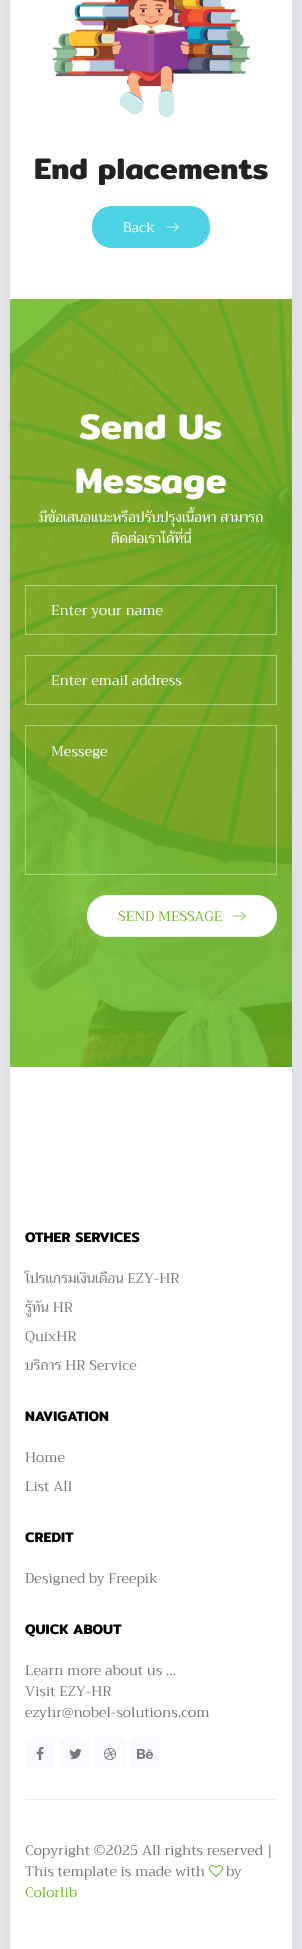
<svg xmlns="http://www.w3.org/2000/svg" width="302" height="1949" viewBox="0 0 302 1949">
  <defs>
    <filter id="blur1" x="-50%" y="-200%" width="200%" height="500%"><feGaussianBlur stdDeviation="25"/></filter>
  </defs>
  <rect width="100%" height="100%" fill="#f6f6fc"/>
  <rect x="10" y="-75" width="282" height="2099" fill="#000000" fill-opacity="0.2" filter="url(#blur1)"/>
  <rect x="10" y="0" width="282" height="299" fill="#ffffff"/>
  <image x="52" y="0" width="198" height="117" href="img1.png"/>
  <text x="34" y="179" font-family="Mitr" font-size="30" font-weight="600" fill="#222222">End placements</text>
  <rect x="92" y="206" width="118" height="42" rx="20" fill="#4cd3e3"/>
  <text x="123" y="232" font-family="Trirong" font-size="14" fill="#ffffff">Back</text>
  <image x="165" y="222" width="14" height="10" href="img2.png"/>
  <image x="10" y="299" width="282" height="768" href="img3.png"/>
  <text x="79" y="439" font-family="Mitr" font-size="36" font-weight="600" fill="#ffffff">Send Us</text>
  <text x="75" y="493" font-family="Mitr" font-size="36" font-weight="600" fill="#ffffff">Message</text>
  <text x="39" y="522" font-family="Trirong" font-size="14" fill="#ffffff">มีข้อเสนอแนะหรือปรับปรุงเนื้อหา สามารถ</text>
  <text x="111" y="543" font-family="Trirong" font-size="14" fill="#ffffff">ติดต่อเราได้ที่นี่</text>
  <rect x="25.5" y="585.5" width="251" height="49" fill="none" stroke="#a6d477"/>
  <text x="51" y="615" font-family="Trirong" font-size="14" fill="#ffffff">Enter your name</text>
  <rect x="25.5" y="655.5" width="251" height="49" fill="none" stroke="#a6d477"/>
  <text x="51" y="685" font-family="Trirong" font-size="14" fill="#ffffff">Enter email address</text>
  <rect x="25.5" y="725.5" width="251" height="149" fill="none" stroke="#a6d477"/>
  <text x="51" y="756" font-family="Trirong" font-size="14" fill="#ffffff">Messege</text>
  <rect x="87.5" y="895.5" width="189" height="41" rx="19.5" fill="#ffffff" stroke="#eeeeee"/>
  <text x="118" y="921" font-family="Trirong" font-size="14" fill="#6cbb23">SEND MESSAGE</text>
  <image x="232" y="911" width="14" height="10" href="img4.png"/>
  <rect x="10" y="1067" width="282" height="882" fill="#ffffff"/>
  <text x="25" y="1242" font-family="Mitr" font-size="14" font-weight="600" fill="#000000">OTHER SERVICES</text>
  <text x="25" y="1283" font-family="Trirong" font-size="14" fill="#777777">โปรแกรมเงินเดือน EZY-HR</text>
  <text x="25" y="1312" font-family="Trirong" font-size="14" fill="#777777">รู้ทัน HR</text>
  <text x="25" y="1341" font-family="Trirong" font-size="14" fill="#777777">QuixHR</text>
  <text x="25" y="1370" font-family="Trirong" font-size="14" fill="#777777">บริการ HR Service</text>
  <text x="25" y="1421" font-family="Mitr" font-size="14" font-weight="600" fill="#000000">NAVIGATION</text>
  <text x="25" y="1462" font-family="Trirong" font-size="14" fill="#777777">Home</text>
  <text x="25" y="1491" font-family="Trirong" font-size="14" fill="#777777">List All</text>
  <text x="25" y="1542" font-family="Mitr" font-size="14" font-weight="600" fill="#000000">CREDIT</text>
  <text x="25" y="1583" font-family="Trirong" font-size="14" fill="#777777">Designed by Freepik</text>
  <text x="25" y="1634" font-family="Mitr" font-size="14" font-weight="600" fill="#000000">QUICK ABOUT</text>
  <text x="25" y="1675" font-family="Trirong" font-size="14" fill="#777777">Learn more about us ...</text>
  <text x="25" y="1696" font-family="Trirong" font-size="14" fill="#777777">Visit EZY-HR</text>
  <text x="25" y="1717" font-family="Trirong" font-size="14" fill="#777777">ezyhr@nobel-solutions.com</text>
  <rect x="25" y="1739" width="30" height="30" fill="#f9f9ff"/>
  <image x="36" y="1747" width="8" height="13" href="img5.png"/>
  <rect x="60" y="1739" width="30" height="30" fill="#f9f9ff"/>
  <image x="69" y="1749" width="13" height="10" href="img6.png"/>
  <rect x="95" y="1739" width="30" height="30" fill="#f9f9ff"/>
  <image x="104" y="1748" width="12" height="12" href="img7.png"/>
  <rect x="130" y="1739" width="30" height="30" fill="#f9f9ff"/>
  <image x="137" y="1749" width="16" height="10" href="img8.png"/>
  <rect x="25" y="1799" width="252" height="1" fill="#eeeeee"/>
  <text x="25" y="1855" font-family="Trirong" font-size="14" fill="#777777">Copyright ©2025 All rights reserved |</text>
  <text x="25" y="1876" font-family="Trirong" font-size="14" fill="#777777">This template is made with</text>
  <image x="209" y="1865" width="14" height="12" href="img9.png"/>
  <text x="226" y="1876" font-family="Trirong" font-size="14" fill="#777777">by</text>
  <text x="25" y="1897" font-family="Trirong" font-size="14" fill="#6cbb23">Colorlib</text>
</svg>
